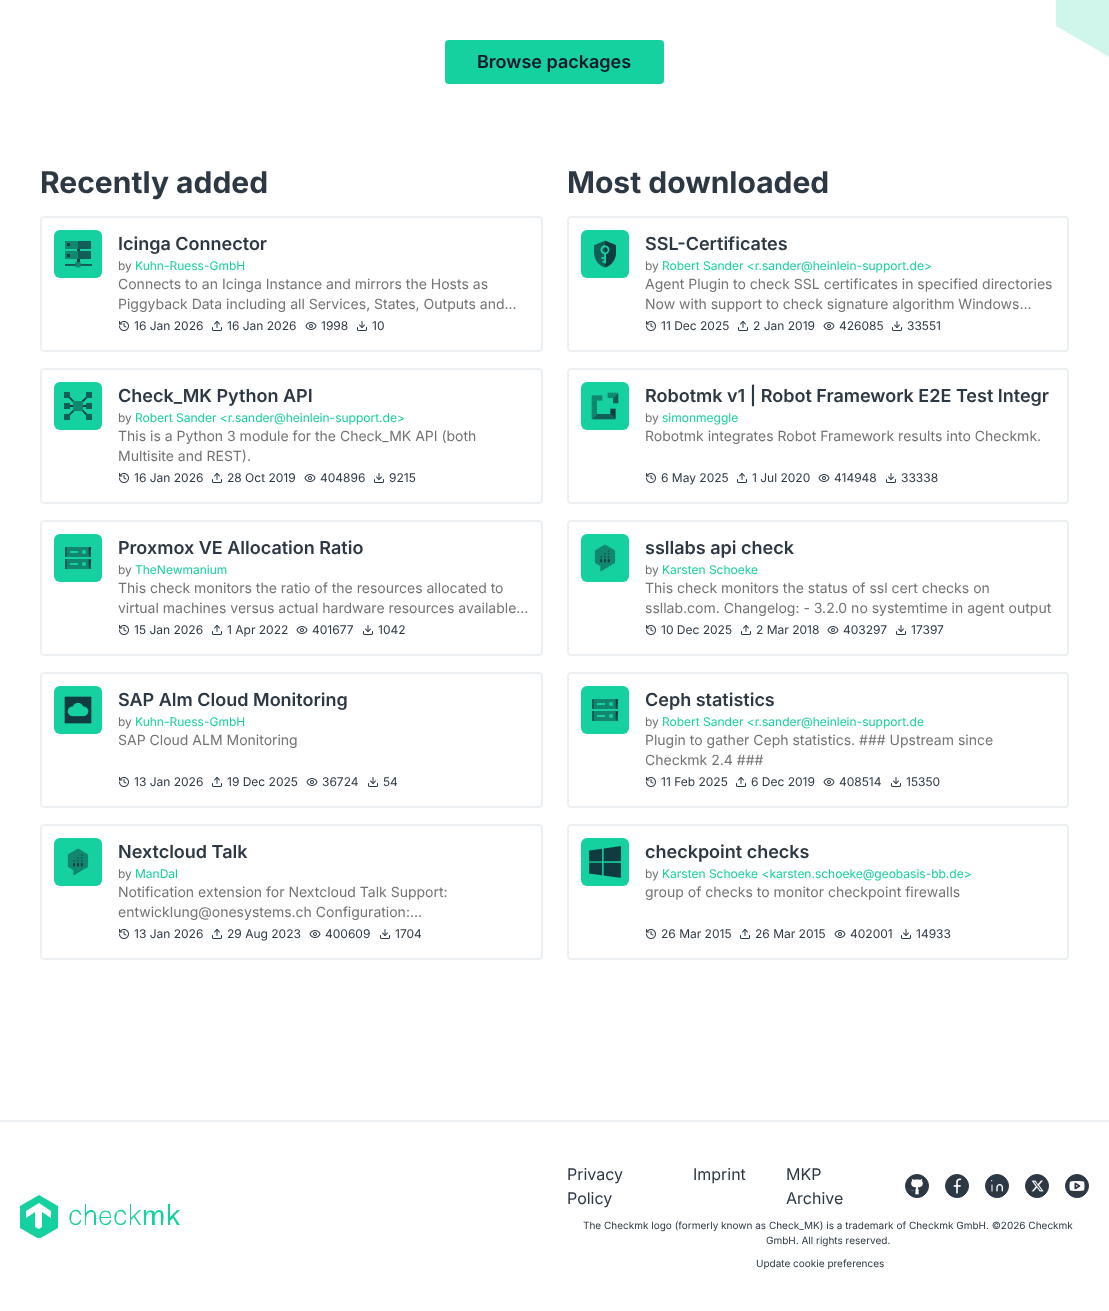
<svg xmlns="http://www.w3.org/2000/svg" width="1109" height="1311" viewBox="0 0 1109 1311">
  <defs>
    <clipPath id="clip1"><rect x="20" y="1195" width="160" height="43"/></clipPath>
  </defs>
  <rect width="100%" height="100%" fill="#ffffff"/>
  <path d="M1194 26V-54L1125-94L1056-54V26L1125 66Z" fill="#d0f6ec"/>
  <rect x="445" y="40" width="219" height="44" rx="4" fill="#15d19f"/>
  <text x="477" y="68" font-family="Inter" font-size="18" font-weight="600" fill="#0f172a">Browse packages</text>
  <text x="40" y="193" font-family="Inter" font-size="30" font-weight="bold" fill="#2c3844">Recently added</text>
  <rect x="41" y="217" width="501" height="134" rx="3" fill="none" stroke="#edf0f2" stroke-width="2"/>
  <rect x="54" y="230" width="48" height="48" rx="6" fill="#15d19f"/>
  <image x="65" y="241" width="27" height="27" href="img1.png"/>
  <text x="118" y="250" font-family="Inter" font-size="18" font-weight="600" fill="#2c3844">Icinga Connector</text>
  <text x="118" y="270" font-family="Inter" font-size="12" fill="#737373">by</text>
  <text x="135" y="270" font-family="Inter" font-size="12" fill="#15d19f">Kuhn-Ruess-GmbH</text>
  <text x="118" y="289" font-family="Inter" font-size="14" fill="#737373">Connects to an Icinga Instance and mirrors the Hosts as</text>
  <text x="118" y="309" font-family="Inter" font-size="14" fill="#737373">Piggyback Data including all Services, States, Outputs and…</text>
  <image x="119" y="321" width="10" height="10" href="img2.png"/>
  <text x="134" y="330" font-family="Inter" font-size="12" fill="#2c3844">16 Jan 2026</text>
  <image x="212" y="321" width="10" height="10" href="img3.png"/>
  <text x="227" y="330" font-family="Inter" font-size="12" fill="#2c3844">16 Jan 2026</text>
  <image x="305" y="322" width="12" height="8" href="img4.png"/>
  <text x="321" y="330" font-family="Inter" font-size="12" fill="#2c3844">1998</text>
  <image x="357" y="321" width="10" height="10" href="img5.png"/>
  <text x="372" y="330" font-family="Inter" font-size="12" fill="#2c3844">10</text>
  <rect x="41" y="369" width="501" height="134" rx="3" fill="none" stroke="#edf0f2" stroke-width="2"/>
  <rect x="54" y="382" width="48" height="48" rx="6" fill="#15d19f"/>
  <image x="64" y="392" width="28" height="28" href="img6.png"/>
  <text x="118" y="402" font-family="Inter" font-size="18" font-weight="600" fill="#2c3844">Check_MK Python API</text>
  <text x="118" y="422" font-family="Inter" font-size="12" fill="#737373">by</text>
  <text x="135" y="422" font-family="Inter" font-size="12" fill="#15d19f">Robert Sander &lt;r.sander@heinlein-support.de&gt;</text>
  <text x="118" y="441" font-family="Inter" font-size="14" fill="#737373">This is a Python 3 module for the Check_MK API (both</text>
  <text x="118" y="461" font-family="Inter" font-size="14" fill="#737373">Multisite and REST).</text>
  <image x="119" y="473" width="10" height="10" href="img2.png"/>
  <text x="134" y="482" font-family="Inter" font-size="12" fill="#2c3844">16 Jan 2026</text>
  <image x="212" y="473" width="10" height="10" href="img3.png"/>
  <text x="227" y="482" font-family="Inter" font-size="12" fill="#2c3844">28 Oct 2019</text>
  <image x="304" y="474" width="12" height="8" href="img4.png"/>
  <text x="320" y="482" font-family="Inter" font-size="12" fill="#2c3844">404896</text>
  <image x="374" y="473" width="10" height="10" href="img5.png"/>
  <text x="389" y="482" font-family="Inter" font-size="12" fill="#2c3844">9215</text>
  <rect x="41" y="521" width="501" height="134" rx="3" fill="none" stroke="#edf0f2" stroke-width="2"/>
  <rect x="54" y="534" width="48" height="48" rx="6" fill="#15d19f"/>
  <image x="65" y="547" width="27" height="22" href="img7.png"/>
  <text x="118" y="554" font-family="Inter" font-size="18" font-weight="600" fill="#2c3844">Proxmox VE Allocation Ratio</text>
  <text x="118" y="574" font-family="Inter" font-size="12" fill="#737373">by</text>
  <text x="135" y="574" font-family="Inter" font-size="12" fill="#15d19f">TheNewmanium</text>
  <text x="118" y="593" font-family="Inter" font-size="14" fill="#737373">This check monitors the ratio of the resources allocated to</text>
  <text x="118" y="613" font-family="Inter" font-size="14" fill="#737373">virtual machines versus actual hardware resources available…</text>
  <image x="119" y="625" width="10" height="10" href="img2.png"/>
  <text x="134" y="634" font-family="Inter" font-size="12" fill="#2c3844">15 Jan 2026</text>
  <image x="212" y="625" width="10" height="10" href="img3.png"/>
  <text x="227" y="634" font-family="Inter" font-size="12" fill="#2c3844">1 Apr 2022</text>
  <image x="296" y="626" width="12" height="8" href="img4.png"/>
  <text x="312" y="634" font-family="Inter" font-size="12" fill="#2c3844">401677</text>
  <image x="363" y="625" width="10" height="10" href="img5.png"/>
  <text x="378" y="634" font-family="Inter" font-size="12" fill="#2c3844">1042</text>
  <rect x="41" y="673" width="501" height="134" rx="3" fill="none" stroke="#edf0f2" stroke-width="2"/>
  <rect x="54" y="686" width="48" height="48" rx="6" fill="#15d19f"/>
  <image x="64" y="696" width="28" height="28" href="img8.png"/>
  <text x="118" y="706" font-family="Inter" font-size="18" font-weight="600" fill="#2c3844">SAP Alm Cloud Monitoring</text>
  <text x="118" y="726" font-family="Inter" font-size="12" fill="#737373">by</text>
  <text x="135" y="726" font-family="Inter" font-size="12" fill="#15d19f">Kuhn-Ruess-GmbH</text>
  <text x="118" y="745" font-family="Inter" font-size="14" fill="#737373">SAP Cloud ALM Monitoring</text>
  <image x="119" y="777" width="10" height="10" href="img2.png"/>
  <text x="134" y="786" font-family="Inter" font-size="12" fill="#2c3844">13 Jan 2026</text>
  <image x="212" y="777" width="10" height="10" href="img3.png"/>
  <text x="227" y="786" font-family="Inter" font-size="12" fill="#2c3844">19 Dec 2025</text>
  <image x="306" y="778" width="12" height="8" href="img4.png"/>
  <text x="322" y="786" font-family="Inter" font-size="12" fill="#2c3844">36724</text>
  <image x="368" y="777" width="10" height="10" href="img5.png"/>
  <text x="383" y="786" font-family="Inter" font-size="12" fill="#2c3844">54</text>
  <rect x="41" y="825" width="501" height="134" rx="3" fill="none" stroke="#edf0f2" stroke-width="2"/>
  <rect x="54" y="838" width="48" height="48" rx="6" fill="#15d19f"/>
  <image x="67" y="848" width="22" height="28" href="img9.png"/>
  <text x="118" y="858" font-family="Inter" font-size="18" font-weight="600" fill="#2c3844">Nextcloud Talk</text>
  <text x="118" y="878" font-family="Inter" font-size="12" fill="#737373">by</text>
  <text x="135" y="878" font-family="Inter" font-size="12" fill="#15d19f">ManDal</text>
  <text x="118" y="897" font-family="Inter" font-size="14" fill="#737373">Notification extension for Nextcloud Talk Support:</text>
  <text x="118" y="917" font-family="Inter" font-size="14" fill="#737373">entwicklung@onesystems.ch Configuration:…</text>
  <image x="119" y="929" width="10" height="10" href="img2.png"/>
  <text x="134" y="938" font-family="Inter" font-size="12" fill="#2c3844">13 Jan 2026</text>
  <image x="212" y="929" width="10" height="10" href="img3.png"/>
  <text x="227" y="938" font-family="Inter" font-size="12" fill="#2c3844">29 Aug 2023</text>
  <image x="309" y="930" width="12" height="8" href="img4.png"/>
  <text x="325" y="938" font-family="Inter" font-size="12" fill="#2c3844">400609</text>
  <image x="380" y="929" width="10" height="10" href="img5.png"/>
  <text x="395" y="938" font-family="Inter" font-size="12" fill="#2c3844">1704</text>
  <text x="567" y="193" font-family="Inter" font-size="30" font-weight="bold" fill="#2c3844">Most downloaded</text>
  <rect x="568" y="217" width="500" height="134" rx="3" fill="none" stroke="#edf0f2" stroke-width="2"/>
  <rect x="581" y="230" width="48" height="48" rx="6" fill="#15d19f"/>
  <image x="594" y="240" width="22" height="28" href="img10.png"/>
  <text x="645" y="250" font-family="Inter" font-size="18" font-weight="600" fill="#2c3844">SSL-Certificates</text>
  <text x="645" y="270" font-family="Inter" font-size="12" fill="#737373">by</text>
  <text x="662" y="270" font-family="Inter" font-size="12" fill="#15d19f">Robert Sander &lt;r.sander@heinlein-support.de&gt;</text>
  <text x="645" y="289" font-family="Inter" font-size="14" fill="#737373">Agent Plugin to check SSL certificates in specified directories</text>
  <text x="645" y="309" font-family="Inter" font-size="14" fill="#737373">Now with support to check signature algorithm Windows…</text>
  <image x="646" y="321" width="10" height="10" href="img2.png"/>
  <text x="661" y="330" font-family="Inter" font-size="12" fill="#2c3844">11 Dec 2025</text>
  <image x="738" y="321" width="10" height="10" href="img3.png"/>
  <text x="753" y="330" font-family="Inter" font-size="12" fill="#2c3844">2 Jan 2019</text>
  <image x="823" y="322" width="12" height="8" href="img4.png"/>
  <text x="839" y="330" font-family="Inter" font-size="12" fill="#2c3844">426085</text>
  <image x="892" y="321" width="10" height="10" href="img5.png"/>
  <text x="907" y="330" font-family="Inter" font-size="12" fill="#2c3844">33551</text>
  <rect x="568" y="369" width="500" height="134" rx="3" fill="none" stroke="#edf0f2" stroke-width="2"/>
  <rect x="581" y="382" width="48" height="48" rx="6" fill="#15d19f"/>
  <image x="591" y="392" width="28" height="28" href="img11.png"/>
  <text x="645" y="402" font-family="Inter" font-size="18" font-weight="600" fill="#2c3844">Robotmk v1 | Robot Framework E2E Test Integr</text>
  <text x="645" y="422" font-family="Inter" font-size="12" fill="#737373">by</text>
  <text x="662" y="422" font-family="Inter" font-size="12" fill="#15d19f">simonmeggle</text>
  <text x="645" y="441" font-family="Inter" font-size="14" fill="#737373">Robotmk integrates Robot Framework results into Checkmk.</text>
  <image x="646" y="473" width="10" height="10" href="img2.png"/>
  <text x="661" y="482" font-family="Inter" font-size="12" fill="#2c3844">6 May 2025</text>
  <image x="737" y="473" width="10" height="10" href="img3.png"/>
  <text x="752" y="482" font-family="Inter" font-size="12" fill="#2c3844">1 Jul 2020</text>
  <image x="818" y="474" width="12" height="8" href="img4.png"/>
  <text x="834" y="482" font-family="Inter" font-size="12" fill="#2c3844">414948</text>
  <image x="886" y="473" width="10" height="10" href="img5.png"/>
  <text x="901" y="482" font-family="Inter" font-size="12" fill="#2c3844">33338</text>
  <rect x="568" y="521" width="500" height="134" rx="3" fill="none" stroke="#edf0f2" stroke-width="2"/>
  <rect x="581" y="534" width="48" height="48" rx="6" fill="#15d19f"/>
  <image x="594" y="544" width="22" height="28" href="img9.png"/>
  <text x="645" y="554" font-family="Inter" font-size="18" font-weight="600" fill="#2c3844">ssllabs api check</text>
  <text x="645" y="574" font-family="Inter" font-size="12" fill="#737373">by</text>
  <text x="662" y="574" font-family="Inter" font-size="12" fill="#15d19f">Karsten Schoeke</text>
  <text x="645" y="593" font-family="Inter" font-size="14" fill="#737373">This check monitors the status of ssl cert checks on</text>
  <text x="645" y="613" font-family="Inter" font-size="14" fill="#737373">ssllab.com. Changelog: - 3.2.0 no systemtime in agent output</text>
  <image x="646" y="625" width="10" height="10" href="img2.png"/>
  <text x="661" y="634" font-family="Inter" font-size="12" fill="#2c3844">10 Dec 2025</text>
  <image x="741" y="625" width="10" height="10" href="img3.png"/>
  <text x="756" y="634" font-family="Inter" font-size="12" fill="#2c3844">2 Mar 2018</text>
  <image x="827" y="626" width="12" height="8" href="img4.png"/>
  <text x="843" y="634" font-family="Inter" font-size="12" fill="#2c3844">403297</text>
  <image x="896" y="625" width="10" height="10" href="img5.png"/>
  <text x="911" y="634" font-family="Inter" font-size="12" fill="#2c3844">17397</text>
  <rect x="568" y="673" width="500" height="134" rx="3" fill="none" stroke="#edf0f2" stroke-width="2"/>
  <rect x="581" y="686" width="48" height="48" rx="6" fill="#15d19f"/>
  <image x="592" y="699" width="27" height="22" href="img7.png"/>
  <text x="645" y="706" font-family="Inter" font-size="18" font-weight="600" fill="#2c3844">Ceph statistics</text>
  <text x="645" y="726" font-family="Inter" font-size="12" fill="#737373">by</text>
  <text x="662" y="726" font-family="Inter" font-size="12" fill="#15d19f">Robert Sander &lt;r.sander@heinlein-support.de</text>
  <text x="645" y="745" font-family="Inter" font-size="14" fill="#737373">Plugin to gather Ceph statistics. ### Upstream since</text>
  <text x="645" y="765" font-family="Inter" font-size="14" fill="#737373">Checkmk 2.4 ###</text>
  <image x="646" y="777" width="10" height="10" href="img2.png"/>
  <text x="661" y="786" font-family="Inter" font-size="12" fill="#2c3844">11 Feb 2025</text>
  <image x="736" y="777" width="10" height="10" href="img3.png"/>
  <text x="751" y="786" font-family="Inter" font-size="12" fill="#2c3844">6 Dec 2019</text>
  <image x="823" y="778" width="12" height="8" href="img4.png"/>
  <text x="839" y="786" font-family="Inter" font-size="12" fill="#2c3844">408514</text>
  <image x="891" y="777" width="10" height="10" href="img5.png"/>
  <text x="906" y="786" font-family="Inter" font-size="12" fill="#2c3844">15350</text>
  <rect x="568" y="825" width="500" height="134" rx="3" fill="none" stroke="#edf0f2" stroke-width="2"/>
  <rect x="581" y="838" width="48" height="48" rx="6" fill="#15d19f"/>
  <image x="589" y="846" width="32" height="32" href="img12.png"/>
  <text x="645" y="858" font-family="Inter" font-size="18" font-weight="600" fill="#2c3844">checkpoint checks</text>
  <text x="645" y="878" font-family="Inter" font-size="12" fill="#737373">by</text>
  <text x="662" y="878" font-family="Inter" font-size="12" fill="#15d19f">Karsten Schoeke &lt;karsten.schoeke@geobasis-bb.de&gt;</text>
  <text x="645" y="897" font-family="Inter" font-size="14" fill="#737373">group of checks to monitor checkpoint firewalls</text>
  <image x="646" y="929" width="10" height="10" href="img2.png"/>
  <text x="661" y="938" font-family="Inter" font-size="12" fill="#2c3844">26 Mar 2015</text>
  <image x="740" y="929" width="10" height="10" href="img3.png"/>
  <text x="755" y="938" font-family="Inter" font-size="12" fill="#2c3844">26 Mar 2015</text>
  <image x="834" y="930" width="12" height="8" href="img4.png"/>
  <text x="850" y="938" font-family="Inter" font-size="12" fill="#2c3844">402001</text>
  <image x="901" y="929" width="10" height="10" href="img5.png"/>
  <text x="916" y="938" font-family="Inter" font-size="12" fill="#2c3844">14933</text>
  <rect x="0" y="1120" width="1109" height="2" fill="#edf0f2"/>
  <path d="M85 1204V1225H86C86 1221 85 1212 91 1212C92 1212 94 1212 94 1214V1225H96C96 1220 98 1210 91 1210C89 1210 87 1211 86 1213V1204ZM130 1204V1225H131V1220L134 1217L139 1225H141L135 1216L141 1210H139L131 1218V1204ZM168 1204V1225H170V1221L173 1218L177 1225H180L174 1216L180 1210H177L170 1217V1204ZM144 1225H146C146 1221 145 1212 150 1212C151 1212 152 1213 152 1214V1225H155C155 1221 153 1212 159 1212C160 1212 161 1213 161 1214V1225H163C163 1220 166 1210 159 1210C157 1210 156 1211 155 1213C153 1209 148 1210 146 1213V1210H144ZM76 1225C79 1225 81 1223 81 1220H80C79 1225 71 1225 71 1219L72 1213C74 1210 79 1211 80 1215H81C81 1213 80 1211 78 1210C68 1207 66 1225 76 1225ZM106 1225C109 1225 111 1223 111 1220H110C109 1225 101 1226 101 1218H111C111 1215 111 1212 108 1211C98 1207 96 1225 106 1225ZM121 1225C124 1225 126 1223 126 1220H125C124 1225 116 1225 116 1219L117 1213C119 1210 124 1211 125 1215H126C126 1213 125 1211 123 1210C113 1207 111 1225 121 1225ZM101 1217C101 1210 110 1210 110 1217Z" fill="#15d19f" fill-rule="evenodd"/>
  <g clip-path="url(#clip1)">
    <path d="M39 1195L20 1206V1228L39 1239L58 1228V1206ZM26 1211L39 1203L51 1211V1218L42 1212V1227L39 1229L35 1227V1212L26 1218Z" fill="#15d19f" fill-rule="evenodd"/>
  </g>
  <text x="567" y="1180" font-family="Inter" font-size="16" fill="#2c3844">Privacy</text>
  <text x="567" y="1204" font-family="Inter" font-size="16" fill="#2c3844">Policy</text>
  <text x="693" y="1180" font-family="Inter" font-size="16" fill="#2c3844">Imprint</text>
  <text x="786" y="1180" font-family="Inter" font-size="16" fill="#2c3844">MKP</text>
  <text x="786" y="1204" font-family="Inter" font-size="16" fill="#2c3844">Archive</text>
  <circle cx="917" cy="1186" r="11.5" fill="#2c3844" stroke="#2c3844"/>
  <image x="910" y="1178" width="13" height="17" href="img13.png"/>
  <circle cx="957" cy="1186" r="11.5" fill="#2c3844" stroke="#2c3844"/>
  <image x="953" y="1178" width="9" height="16" href="img14.png"/>
  <circle cx="997" cy="1186" r="11.5" fill="#2c3844" stroke="#2c3844"/>
  <image x="990" y="1179" width="14" height="13" href="img15.png"/>
  <circle cx="1037" cy="1186" r="11.5" fill="#2c3844" stroke="#2c3844"/>
  <image x="1031" y="1180" width="13" height="12" href="img16.png"/>
  <circle cx="1077" cy="1186" r="11.5" fill="#2c3844" stroke="#2c3844"/>
  <image x="1069" y="1181" width="16" height="10" href="img17.png"/>
  <text x="583" y="1229" font-family="Inter" font-size="10" fill="#2c3844">The Checkmk logo (formerly known as Check_MK) is a trademark of Checkmk GmbH. ©2026 Checkmk</text>
  <text x="766" y="1244" font-family="Inter" font-size="10" fill="#2c3844">GmbH. All rights reserved.</text>
  <text x="756" y="1267" font-family="Inter" font-size="10" fill="#2c3844">Update cookie preferences</text>
</svg>
